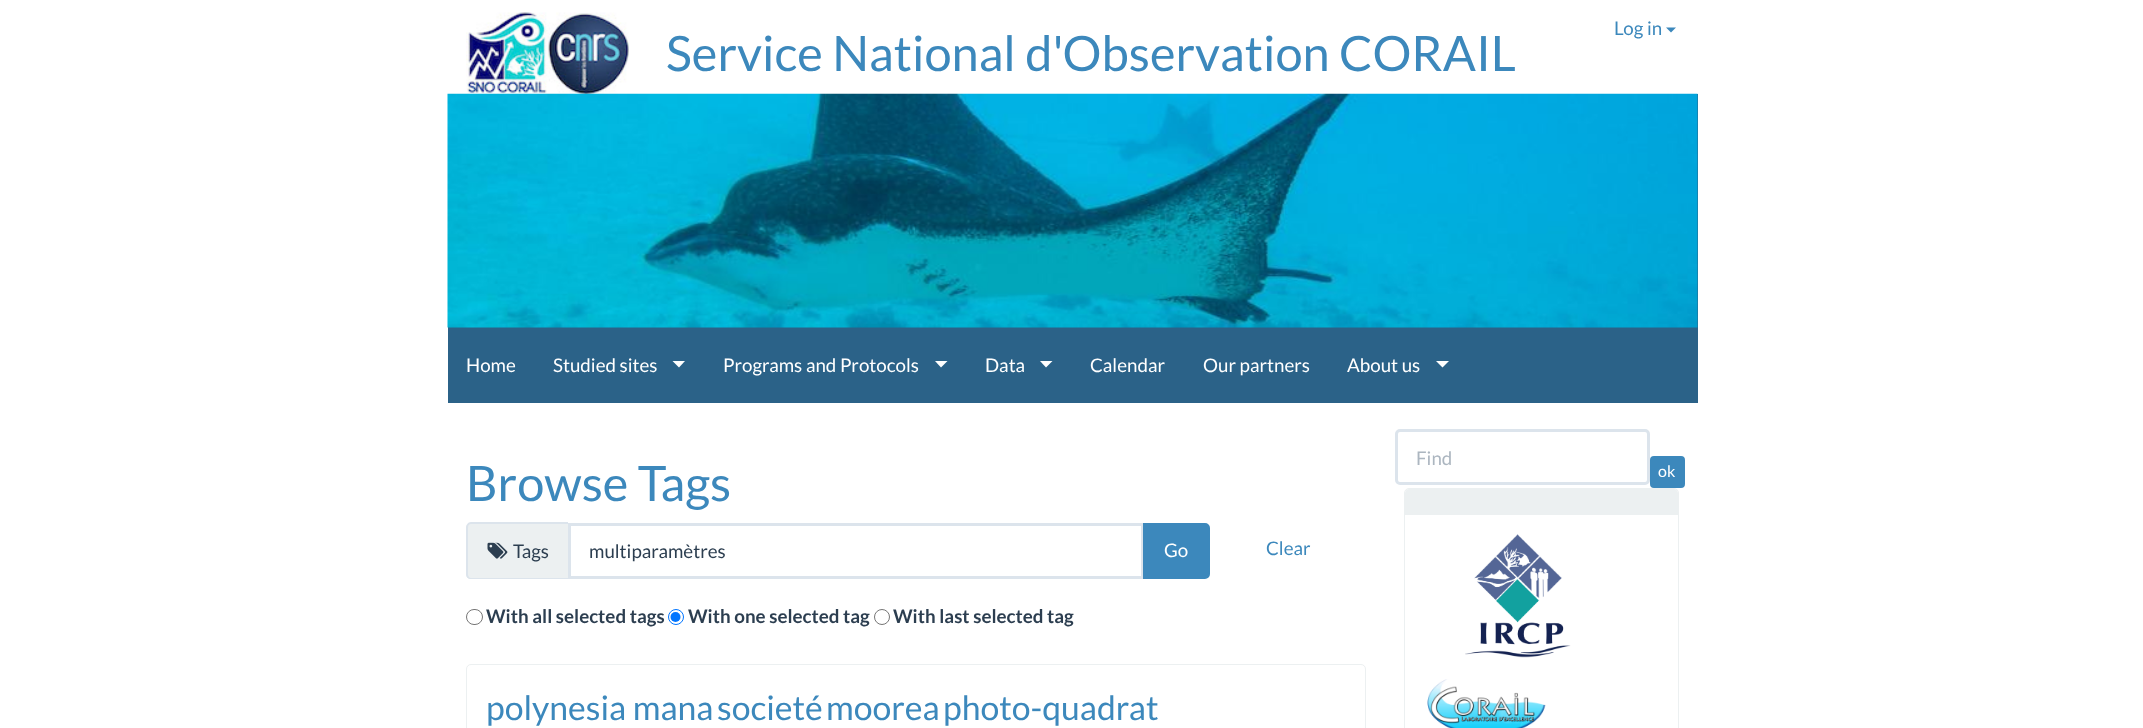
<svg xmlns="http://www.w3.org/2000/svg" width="2143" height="728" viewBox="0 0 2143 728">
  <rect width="100%" height="100%" fill="#ffffff"/>
  <text x="1614" y="35" font-family="Lato" font-size="18.75" fill="#3c88bc">Log in</text>
  <path d="M1666 27.5H1676L1671 32.5Z" fill="#3c88bc"/>
  <image x="466" y="12" width="163" height="82" href="img1.png"/>
  <text x="666" y="71" font-family="Lato" font-size="48.75" fill="#3c88bc">Service National d'Observation CORAIL</text>
  <rect x="448" y="94" width="1250" height="309" fill="#2b6288"/>
  <image x="447" y="93" width="1251" height="235" href="img2.png"/>
  <text x="466" y="372" font-family="Lato" font-size="18.75" fill="#ffffff">Home</text>
  <text x="553" y="372" font-family="Lato" font-size="18.75" fill="#ffffff">Studied sites</text>
  <path d="M672.5 361H685L679 367.5Z" fill="#ffffff"/>
  <text x="723" y="372" font-family="Lato" font-size="18.75" fill="#ffffff">Programs and Protocols</text>
  <path d="M935 361H947.5L941 367.5Z" fill="#ffffff"/>
  <text x="985" y="372" font-family="Lato" font-size="18.75" fill="#ffffff">Data</text>
  <path d="M1040 361H1052.5L1046 367.5Z" fill="#ffffff"/>
  <text x="1090" y="372" font-family="Lato" font-size="18.75" fill="#ffffff">Calendar</text>
  <text x="1203" y="372" font-family="Lato" font-size="18.75" fill="#ffffff">Our partners</text>
  <text x="1347" y="372" font-family="Lato" font-size="18.75" fill="#ffffff">About us</text>
  <path d="M1436 361H1449L1442.5 367.5Z" fill="#ffffff"/>
  <text x="466" y="501" font-family="Lato" font-size="48.75" fill="#3c88bc">Browse Tags</text>
  <path d="M471 523H568V579H471C468 579 466 577 466 574V528C466 525 468 523 471 523Z" fill="#ecf0f1"/>
  <path d="M471 522H568V579H471C468 579 466 577 466 574V528C466 525 468 522 471 522ZM471 524H568V578H471C469 578 468 576 468 574V528C468 525 469 524 471 524Z" fill="#dce4ec" fill-rule="evenodd"/>
  <image x="487" y="542" width="21" height="17" href="img3.png"/>
  <text x="513" y="558" font-family="Lato" font-size="18.75" fill="#2c3e50">Tags</text>
  <rect x="569.5" y="524.5" width="573" height="53" fill="none" stroke="#dce4ec" stroke-width="3"/>
  <text x="589" y="558" font-family="Lato" font-size="18.75" fill="#2c3e50">multiparamètres</text>
  <path d="M1144.5 524.5H1205C1207 524.5 1208.5 526 1208.5 528V574C1208.5 576 1207 577.5 1205 577.5H1144.5Z" fill="#3c88bc" stroke="#3c88bc" stroke-width="3"/>
  <text x="1164" y="557" font-family="Lato" font-size="18.75" fill="#ffffff">Go</text>
  <text x="1266" y="555" font-family="Lato" font-size="18.75" fill="#3c88bc">Clear</text>
  <rect x="466.5" y="609.5" width="16" height="15" rx="7.5" fill="none" stroke="#767676"/>
  <text x="486" y="623" font-family="Lato" font-size="18.75" font-weight="bold" fill="#2c3e50">With all selected tags</text>
  <circle cx="676" cy="617" r="7.5" fill="none" stroke="#0075ff"/>
  <circle cx="675.5" cy="617" r="5" fill="#0075ff"/>
  <text x="688" y="623" font-family="Lato" font-size="18.75" font-weight="bold" fill="#2c3e50">With one selected tag</text>
  <circle cx="882" cy="617" r="7.5" fill="none" stroke="#767676"/>
  <text x="893" y="623" font-family="Lato" font-size="18.75" font-weight="bold" fill="#2c3e50">With last selected tag</text>
  <rect x="466.5" y="664.5" width="899" height="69" rx="4.5" fill="none" stroke="#ecf0f1"/>
  <text x="486" y="720" font-family="Lato" font-size="33.75" fill="#3c88bc">polynesia mana</text>
  <text x="717" y="720" font-family="Lato" font-size="33.75" fill="#3c88bc">societé</text>
  <text x="826" y="720" font-family="Lato" font-size="33.75" fill="#3c88bc">moorea</text>
  <text x="943" y="720" font-family="Lato" font-size="33.75" fill="#3c88bc">photo-quadrat</text>
  <rect x="1396.5" y="430.5" width="252" height="53" rx="3.5" fill="none" stroke="#dce4ec" stroke-width="3"/>
  <text x="1416" y="465" font-family="Lato" font-size="18.75" fill="#acb6c0">Find</text>
  <rect x="1651.5" y="457.5" width="32" height="29" rx="2.5" fill="#3c88bc" stroke="#3c88bc" stroke-width="3"/>
  <text x="1658" y="477" font-family="Lato" font-size="16" fill="#ffffff">ok</text>
  <rect x="1404.5" y="488.5" width="274" height="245" rx="4.5" fill="none" stroke="#ecf0f1"/>
  <path d="M1409 489H1674C1676 489 1678 491 1678 493V515H1405V493C1405 491 1407 489 1409 489Z" fill="#ecf0f1"/>
  <image x="1465" y="534" width="106" height="124" href="img4.png"/>
  <image x="1427" y="679" width="119" height="49" href="img5.png"/>
</svg>
